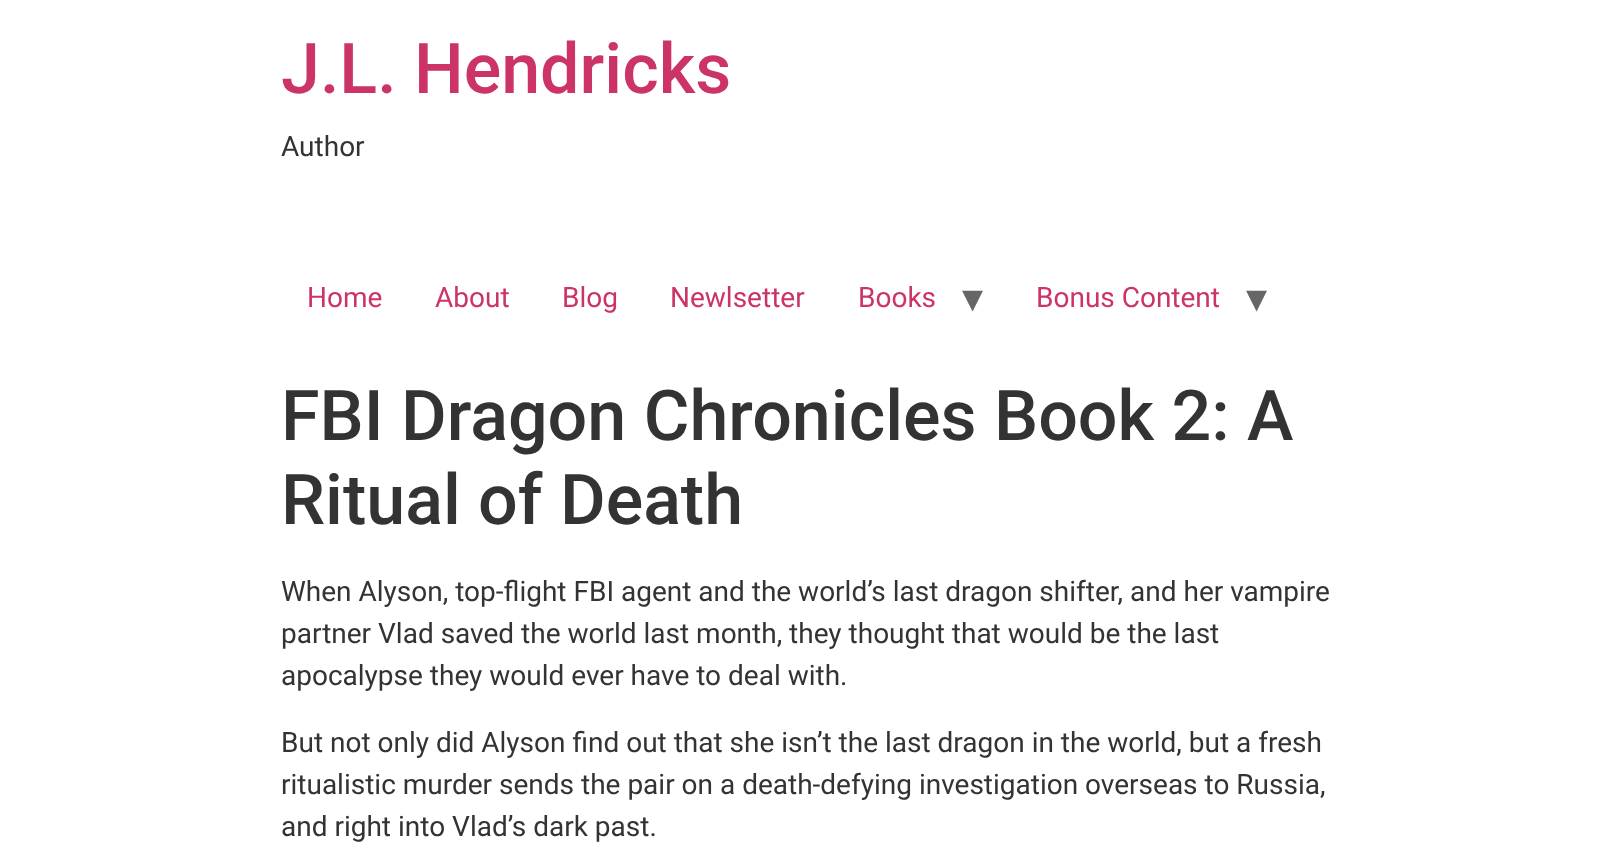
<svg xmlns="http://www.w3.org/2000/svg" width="1611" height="844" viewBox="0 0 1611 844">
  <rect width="100%" height="100%" fill="#ffffff"/>
  <text x="281" y="93" font-family="Roboto" font-size="70" font-weight="500" fill="#cc3366">J.L. Hendricks</text>
  <text x="281" y="156" font-family="Roboto" font-size="28" fill="#333333">Author</text>
  <text x="307" y="307" font-family="Roboto" font-size="28" fill="#cc3366">Home</text>
  <text x="435" y="307" font-family="Roboto" font-size="28" fill="#cc3366">About</text>
  <text x="562" y="307" font-family="Roboto" font-size="28" fill="#cc3366">Blog</text>
  <text x="670" y="307" font-family="Roboto" font-size="28" fill="#cc3366">Newlsetter</text>
  <text x="858" y="307" font-family="Roboto" font-size="28" fill="#cc3366">Books</text>
  <text x="962" y="312" font-family="DejaVu Sans" font-size="42" fill="#666666">▾</text>
  <text x="1036" y="307" font-family="Roboto" font-size="28" fill="#cc3366">Bonus Content</text>
  <text x="1246" y="312" font-family="DejaVu Sans" font-size="42" fill="#666666">▾</text>
  <text x="281" y="440" font-family="Roboto" font-size="70" font-weight="500" fill="#333333">FBI Dragon Chronicles Book 2: A</text>
  <text x="281" y="524" font-family="Roboto" font-size="70" font-weight="500" fill="#333333">Ritual of Death</text>
  <text x="281" y="601" font-family="Roboto" font-size="28" fill="#333333">When Alyson, top-flight FBI agent and the world’s last dragon shifter, and her vampire</text>
  <text x="281" y="643" font-family="Roboto" font-size="28" fill="#333333">partner Vlad saved the world last month, they thought that would be the last</text>
  <text x="281" y="685" font-family="Roboto" font-size="28" fill="#333333">apocalypse they would ever have to deal with.</text>
  <text x="281" y="752" font-family="Roboto" font-size="28" fill="#333333">But not only did Alyson find out that she isn’t the last dragon in the world, but a fresh</text>
  <text x="281" y="794" font-family="Roboto" font-size="28" fill="#333333">ritualistic murder sends the pair on a death-defying investigation overseas to Russia,</text>
  <text x="281" y="836" font-family="Roboto" font-size="28" fill="#333333">and right into Vlad’s dark past.</text>
</svg>
